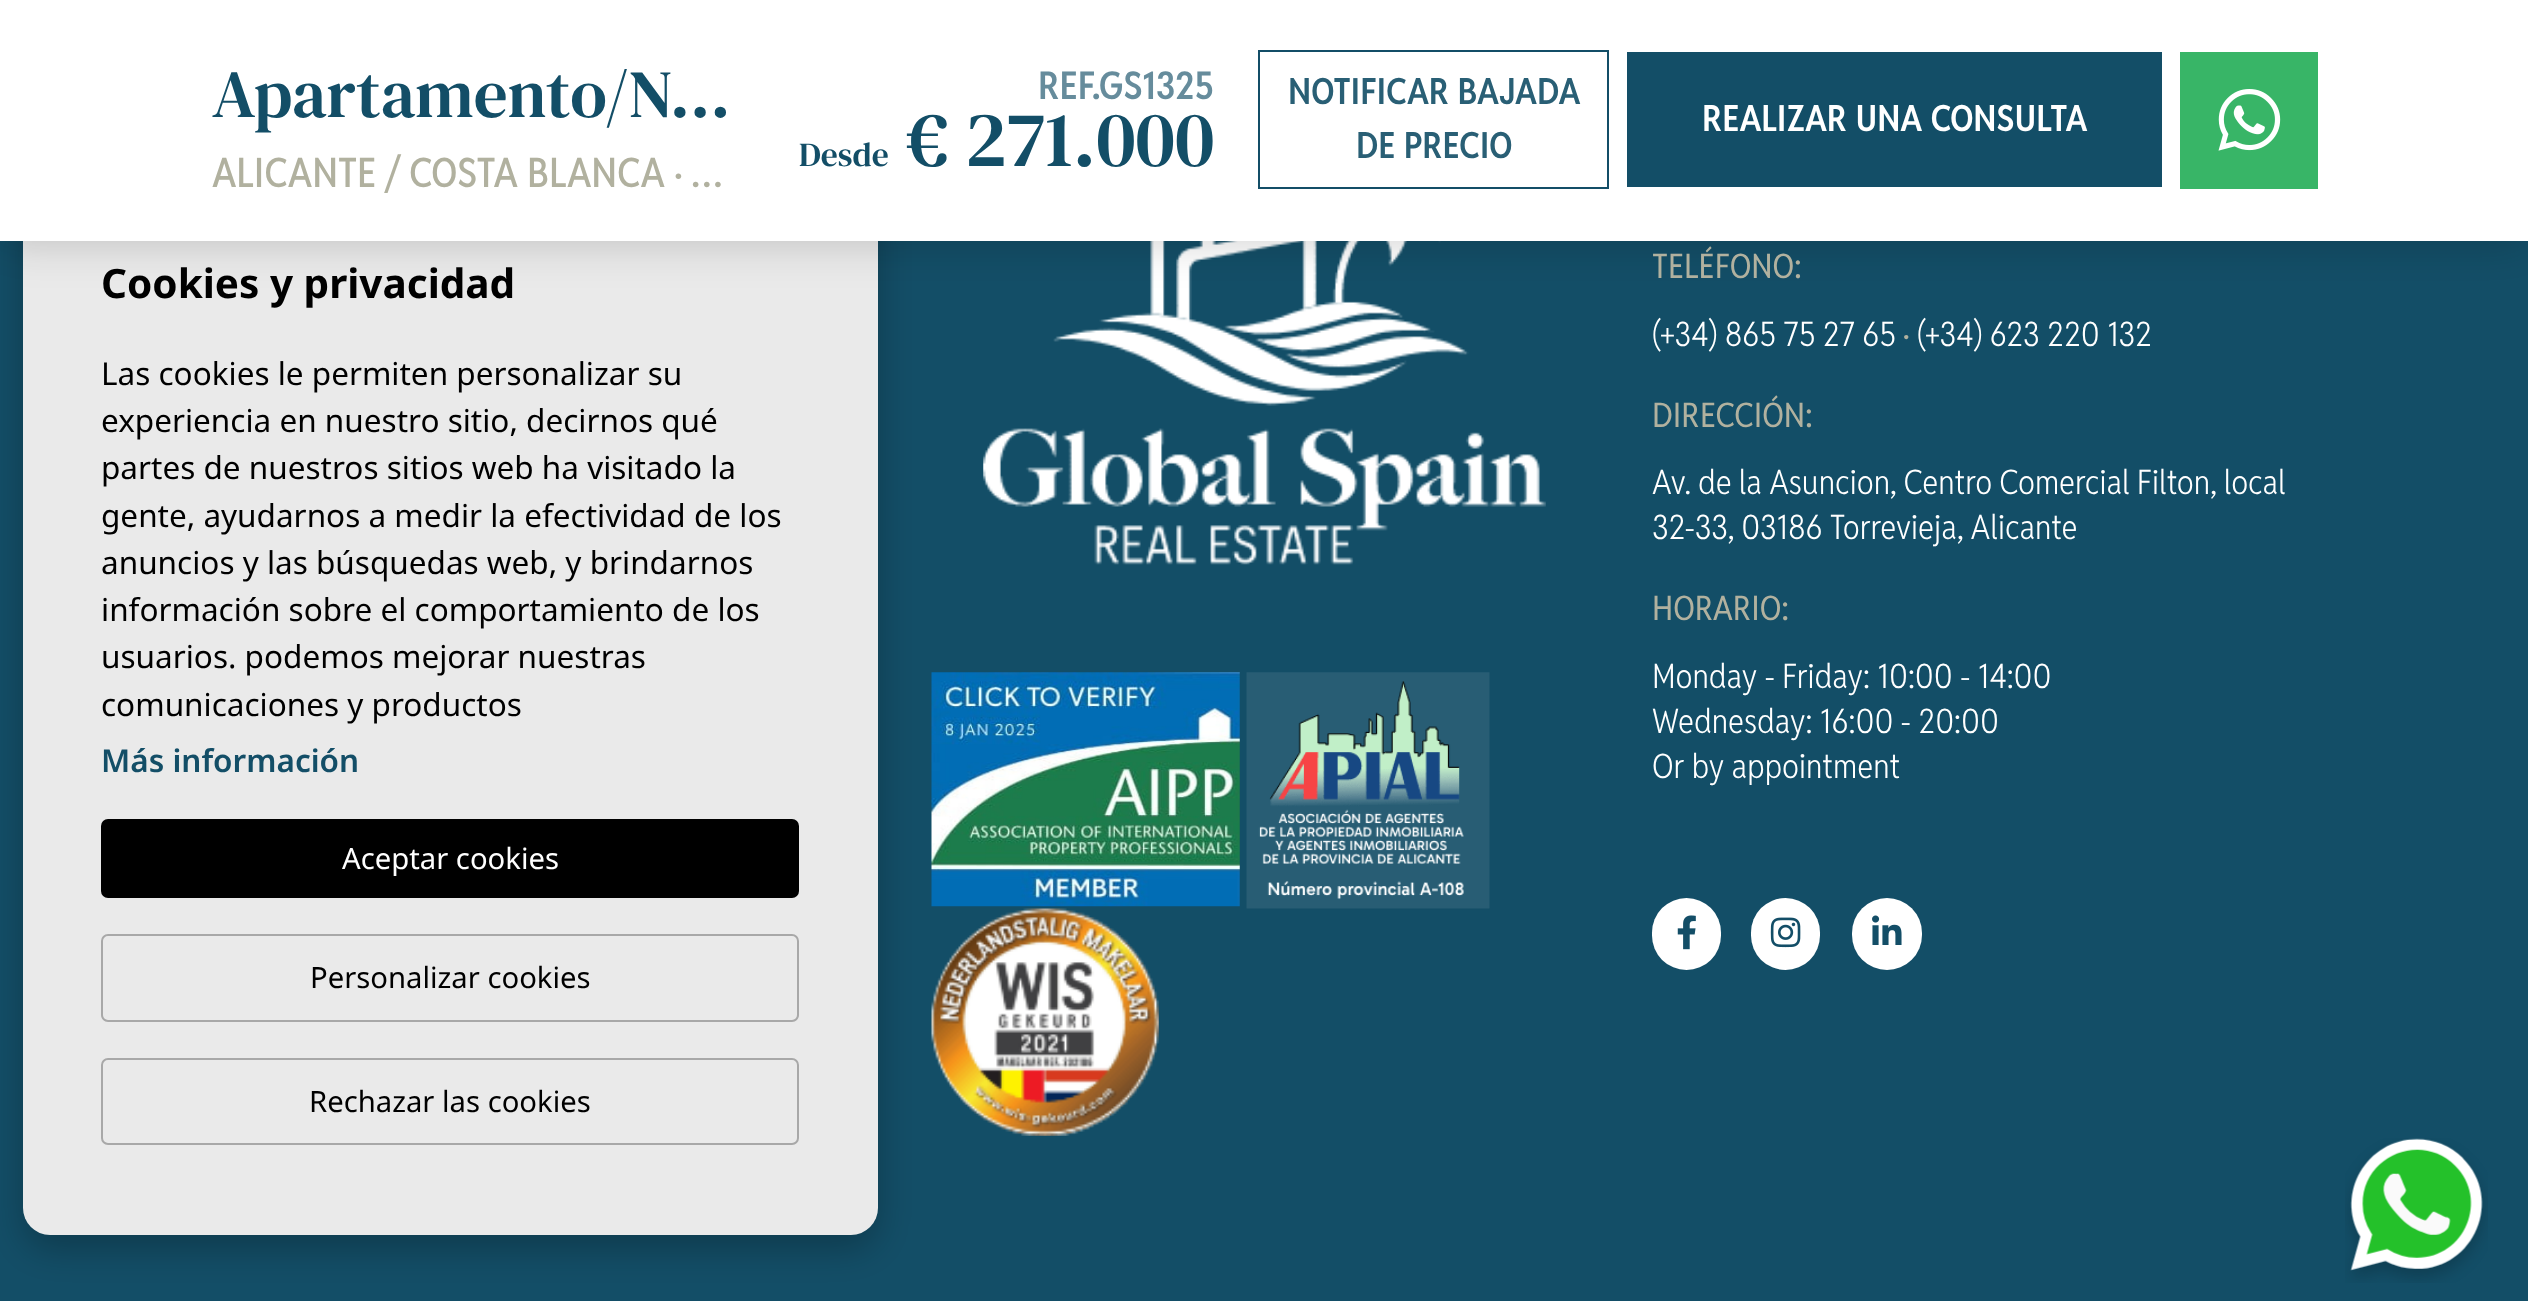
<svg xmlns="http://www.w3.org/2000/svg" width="2528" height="1301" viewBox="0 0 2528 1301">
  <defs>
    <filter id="blur1" x="-50%" y="-200%" width="200%" height="500%"><feGaussianBlur stdDeviation="18"/></filter>
    <filter id="blur2" x="-50%" y="-200%" width="200%" height="500%"><feGaussianBlur stdDeviation="22.5"/></filter>
  </defs>
  <rect width="100%" height="100%" fill="#134e67"/>
  <image x="931" y="672" width="309" height="235" href="img3.png"/>
  <image x="931" y="908" width="228" height="228" href="img5.png"/>
  <rect x="23" y="205" width="855" height="1044" rx="27" fill="#000000" fill-opacity="0.25" filter="url(#blur1)"/>
  <rect x="23" y="191" width="855" height="1044" rx="27" fill="#eaeaea"/>
  <image x="983" y="241" width="563" height="324" href="img2.png"/>
  <rect x="0" y="0" width="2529" height="241" fill="#000000" fill-opacity="0.2" filter="url(#blur2)"/>
  <rect x="0" y="0" width="2528" height="241" fill="#ffffff"/>
  <text x="212" y="117" font-family="DM Serif Text" font-size="67.5" fill="#134e67">Apartamento</text>
  <text x="605" y="117" font-family="DM Serif Text" font-size="67.5" fill="#134e67">/N…</text>
  <text x="212" y="187" font-family="Reddit Sans Condensed" font-size="40.5" font-weight="500" fill="#b1b19f">ALICANTE / COSTA BLANCA · …</text>
  <text x="1038" y="99" font-family="Reddit Sans Condensed" font-size="38.25" font-weight="600" fill="#668c9c">REF.GS1325</text>
  <text x="799" y="166" font-family="DM Serif Text" font-size="33.75" fill="#134e67">Desde</text>
  <text x="906" y="166" font-family="DM Serif Text" font-size="79" fill="#134e67">€ 271.000</text>
  <rect x="1259" y="51" width="349" height="137" fill="none" stroke="#134e67" stroke-width="2"/>
  <text x="1288" y="104" font-family="Reddit Sans Condensed" font-size="36" font-weight="600" fill="#295f75">NOTIFICAR BAJADA</text>
  <text x="1356" y="158" font-family="Reddit Sans Condensed" font-size="36" font-weight="600" fill="#295f75">DE PRECIO</text>
  <rect x="1627" y="52" width="535" height="135" fill="#134e67"/>
  <text x="1702" y="131" font-family="Reddit Sans Condensed" font-size="36" font-weight="600" fill="#ffffff">REALIZAR UNA CONSULTA</text>
  <rect x="2180" y="52" width="138" height="137" fill="#38b567"/>
  <image x="2218" y="89" width="63" height="62" href="img1.png"/>
  <text x="101" y="298" font-family="Noto Sans" font-size="40.5" font-weight="bold" fill="#000000">Cookies y privacidad</text>
  <text x="101" y="385" font-family="Noto Sans" font-size="31.5" fill="#000000">Las cookies le permiten personalizar su</text>
  <text x="101" y="432" font-family="Noto Sans" font-size="31.5" fill="#000000">experiencia en nuestro sitio, decirnos qué</text>
  <text x="101" y="479" font-family="Noto Sans" font-size="31.5" fill="#000000">partes de nuestros sitios web ha visitado la</text>
  <text x="101" y="527" font-family="Noto Sans" font-size="31.5" fill="#000000">gente, ayudarnos a medir la efectividad de los</text>
  <text x="101" y="574" font-family="Noto Sans" font-size="31.5" fill="#000000">anuncios y las búsquedas web, y brindarnos</text>
  <text x="101" y="621" font-family="Noto Sans" font-size="31.5" fill="#000000">información sobre el comportamiento de los</text>
  <text x="101" y="668" font-family="Noto Sans" font-size="31.5" fill="#000000">usuarios. podemos mejorar nuestras</text>
  <text x="101" y="716" font-family="Noto Sans" font-size="31.5" fill="#000000">comunicaciones y productos</text>
  <text x="101" y="772" font-family="Noto Sans" font-size="31.5" font-weight="600" fill="#134e67">Más información</text>
  <rect x="101" y="819" width="698" height="79" rx="7" fill="#000000"/>
  <text x="342" y="869" font-family="Noto Sans" font-size="29.25" fill="#ffffff">Aceptar cookies</text>
  <rect x="102" y="935" width="696" height="86" rx="6" fill="none" stroke="#a8a8a8" stroke-width="2"/>
  <text x="310" y="988" font-family="Noto Sans" font-size="29.25" fill="#000000">Personalizar cookies</text>
  <rect x="102" y="1059" width="696" height="85" rx="6" fill="none" stroke="#a8a8a8" stroke-width="2"/>
  <text x="309" y="1112" font-family="Noto Sans" font-size="29.25" fill="#000000">Rechazar las cookies</text>
  <image x="1246" y="672" width="244" height="237" href="img4.png"/>
  <text x="1652" y="278" font-family="Reddit Sans Condensed" font-size="33.75" fill="#b1b19f">TELÉFONO:</text>
  <text x="1652" y="346" font-family="Reddit Sans Condensed" font-size="33.75" font-weight="300" fill="#ffffff">(+34) 865 75 27 65</text>
  <text x="1903" y="346" font-family="Reddit Sans Condensed" font-size="33.75" fill="#b1b19f">·</text>
  <text x="1917" y="346" font-family="Reddit Sans Condensed" font-size="33.75" font-weight="300" fill="#ffffff">(+34) 623 220 132</text>
  <text x="1652" y="427" font-family="Reddit Sans Condensed" font-size="33.75" fill="#b1b19f">DIRECCIÓN:</text>
  <text x="1652" y="494" font-family="Reddit Sans Condensed" font-size="33.75" font-weight="300" fill="#ffffff">Av. de la Asuncion, Centro Comercial Filton, local</text>
  <text x="1652" y="539" font-family="Reddit Sans Condensed" font-size="33.75" font-weight="300" fill="#ffffff">32-33, 03186 Torrevieja, Alicante</text>
  <text x="1652" y="620" font-family="Reddit Sans Condensed" font-size="33.75" fill="#b1b19f">HORARIO:</text>
  <text x="1652" y="688" font-family="Reddit Sans Condensed" font-size="33.75" font-weight="300" fill="#ffffff">Monday - Friday: 10:00 - 14:00</text>
  <text x="1652" y="733" font-family="Reddit Sans Condensed" font-size="33.75" font-weight="300" fill="#ffffff">Wednesday: 16:00 - 20:00</text>
  <text x="1652" y="778" font-family="Reddit Sans Condensed" font-size="33.75" font-weight="300" fill="#ffffff">Or by appointment</text>
  <rect x="1652" y="898" width="69" height="72" rx="34.5" fill="#ffffff"/>
  <image x="1677" y="915" width="19" height="35" href="img6.png"/>
  <rect x="1751" y="898" width="69" height="72" rx="34.5" fill="#ffffff"/>
  <image x="1770" y="917" width="31" height="31" href="img7.png"/>
  <rect x="1852" y="898" width="70" height="72" rx="35" fill="#ffffff"/>
  <image x="1872" y="915" width="30" height="30" href="img8.png"/>
  <image x="2345" y="1138" width="143" height="145" href="img9.png"/>
</svg>
